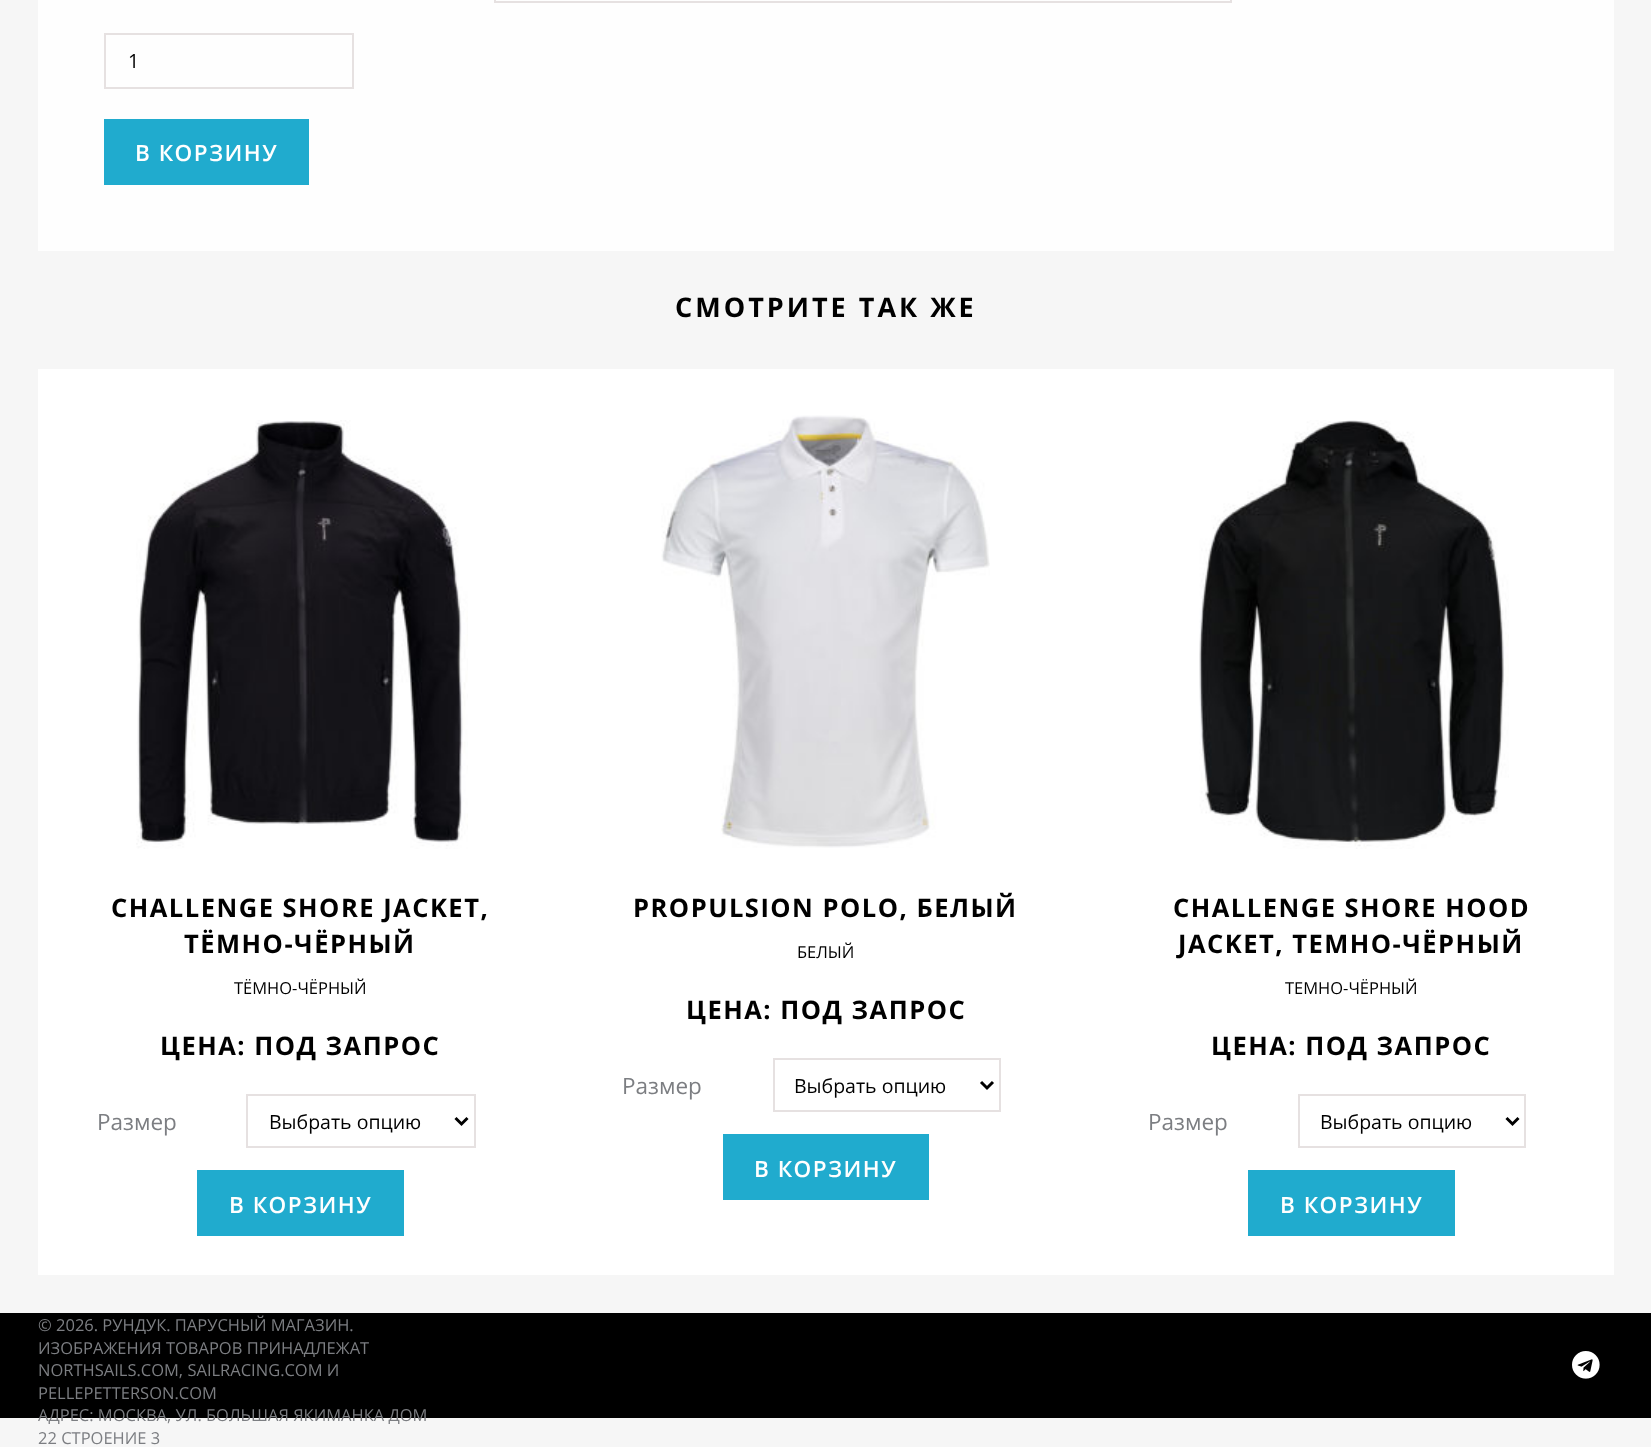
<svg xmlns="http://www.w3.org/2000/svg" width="1651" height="1447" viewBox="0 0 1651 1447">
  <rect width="100%" height="100%" fill="#f6f6f6"/>
  <rect x="38" y="0" width="1576" height="251" fill="#fefefe"/>
  <rect x="495" y="-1" width="736" height="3" fill="none" stroke="#e6e1e1" stroke-width="2"/>
  <rect x="105" y="34" width="248" height="54" fill="none" stroke="#e6e1e1" stroke-width="2"/>
  <text x="128" y="68" font-family="Open Sans" font-size="19.5" letter-spacing="1" fill="#000000">1</text>
  <rect x="104" y="119" width="205" height="66" fill="#20abce"/>
  <text x="135" y="161" font-family="Open Sans" font-size="22.5" font-weight="600" letter-spacing="1.5" fill="#ffffff">В КОРЗИНУ</text>
  <text x="675" y="317" font-family="Open Sans" font-size="27" font-weight="bold" letter-spacing="3" fill="#000000">СМОТРИТЕ ТАК ЖЕ</text>
  <rect x="38" y="369" width="1576" height="906" fill="#ffffff"/>
  <image x="136" y="420" width="332" height="429" href="img1.png"/>
  <text x="111" y="917" font-family="Open Sans" font-size="25.5" font-weight="bold" letter-spacing="1.5" fill="#000000">CHALLENGE SHORE JACKET,</text>
  <text x="184" y="953" font-family="Open Sans" font-size="25.5" font-weight="bold" letter-spacing="1.5" fill="#000000">ТЁМНО-ЧЁРНЫЙ</text>
  <text x="234" y="994" font-family="Open Sans" font-size="16.5" fill="#000000">ТЁМНО-ЧЁРНЫЙ</text>
  <text x="160" y="1055" font-family="Open Sans" font-size="25.5" font-weight="bold" letter-spacing="1.5" fill="#000000">ЦЕНА: ПОД ЗАПРОС</text>
  <text x="97" y="1130" font-family="Open Sans" font-size="22.5" fill="#7c7e82">Размер</text>
  <rect x="247" y="1095" width="228" height="52" fill="none" stroke="#e6e1e1" stroke-width="2"/>
  <path d="M455.5 1118L461.5 1124L467.5 1118" fill="none" stroke="#000000" stroke-width="3"/>
  <text x="269" y="1129" font-family="Open Sans" font-size="19.5" fill="#000000">Выбрать опцию</text>
  <rect x="197" y="1170" width="207" height="66" fill="#20abce"/>
  <text x="229" y="1213" font-family="Open Sans" font-size="22.5" font-weight="600" letter-spacing="1.5" fill="#ffffff">В КОРЗИНУ</text>
  <image x="661" y="415" width="329" height="433" href="img2.png"/>
  <text x="633" y="917" font-family="Open Sans" font-size="25.5" font-weight="bold" letter-spacing="1.5" fill="#000000">PROPULSION POLO, БЕЛЫЙ</text>
  <text x="797" y="958" font-family="Open Sans" font-size="16.5" fill="#000000">БЕЛЫЙ</text>
  <text x="686" y="1019" font-family="Open Sans" font-size="25.5" font-weight="bold" letter-spacing="1.5" fill="#000000">ЦЕНА: ПОД ЗАПРОС</text>
  <text x="622" y="1094" font-family="Open Sans" font-size="22.5" fill="#7c7e82">Размер</text>
  <rect x="774" y="1059" width="226" height="52" fill="none" stroke="#e6e1e1" stroke-width="2"/>
  <path d="M981 1082L987 1088L993 1082" fill="none" stroke="#000000" stroke-width="3"/>
  <text x="794" y="1093" font-family="Open Sans" font-size="19.5" fill="#000000">Выбрать опцию</text>
  <rect x="723" y="1134" width="206" height="66" fill="#20abce"/>
  <text x="754" y="1177" font-family="Open Sans" font-size="22.5" font-weight="600" letter-spacing="1.5" fill="#ffffff">В КОРЗИНУ</text>
  <image x="1199" y="420" width="310" height="429" href="img3.png"/>
  <text x="1173" y="917" font-family="Open Sans" font-size="25.5" font-weight="bold" letter-spacing="1.5" fill="#000000">CHALLENGE SHORE HOOD</text>
  <text x="1178" y="953" font-family="Open Sans" font-size="25.5" font-weight="bold" letter-spacing="1.5" fill="#000000">JACKET, ТЕМНО-ЧЁРНЫЙ</text>
  <text x="1285" y="994" font-family="Open Sans" font-size="16.5" fill="#000000">ТЕМНО-ЧЁРНЫЙ</text>
  <text x="1211" y="1055" font-family="Open Sans" font-size="25.5" font-weight="bold" letter-spacing="1.5" fill="#000000">ЦЕНА: ПОД ЗАПРОС</text>
  <text x="1148" y="1130" font-family="Open Sans" font-size="22.5" fill="#7c7e82">Размер</text>
  <rect x="1299" y="1095" width="226" height="52" fill="none" stroke="#e6e1e1" stroke-width="2"/>
  <path d="M1506.5 1118L1512.5 1124L1518.5 1118" fill="none" stroke="#000000" stroke-width="3"/>
  <text x="1320" y="1129" font-family="Open Sans" font-size="19.5" fill="#000000">Выбрать опцию</text>
  <rect x="1248" y="1170" width="207" height="66" fill="#20abce"/>
  <text x="1280" y="1213" font-family="Open Sans" font-size="22.5" font-weight="600" letter-spacing="1.5" fill="#ffffff">В КОРЗИНУ</text>
  <rect x="0" y="1313" width="1651" height="105" fill="#000000"/>
  <text x="38" y="1331" font-family="Open Sans" font-size="16.5" fill="#7c7e82">© 2026. РУНДУК. ПАРУСНЫЙ МАГАЗИН.</text>
  <text x="38" y="1354" font-family="Open Sans" font-size="16.5" fill="#7c7e82">ИЗОБРАЖЕНИЯ ТОВАРОВ ПРИНАДЛЕЖАТ</text>
  <text x="38" y="1376" font-family="Open Sans" font-size="16.5" fill="#7c7e82">NORTHSAILS.COM, SAILRACING.COM И</text>
  <text x="38" y="1399" font-family="Open Sans" font-size="16.5" fill="#7c7e82">PELLEPETTERSON.COM</text>
  <text x="38" y="1421" font-family="Open Sans" font-size="16.5" fill="#7c7e82">АДРЕС: МОСКВА, УЛ. БОЛЬШАЯ ЯКИМАНКА ДОМ</text>
  <text x="38" y="1444" font-family="Open Sans" font-size="16.5" fill="#7c7e82">22 СТРОЕНИЕ 3</text>
  <image x="1572" y="1351" width="28" height="28" href="img4.png"/>
</svg>
